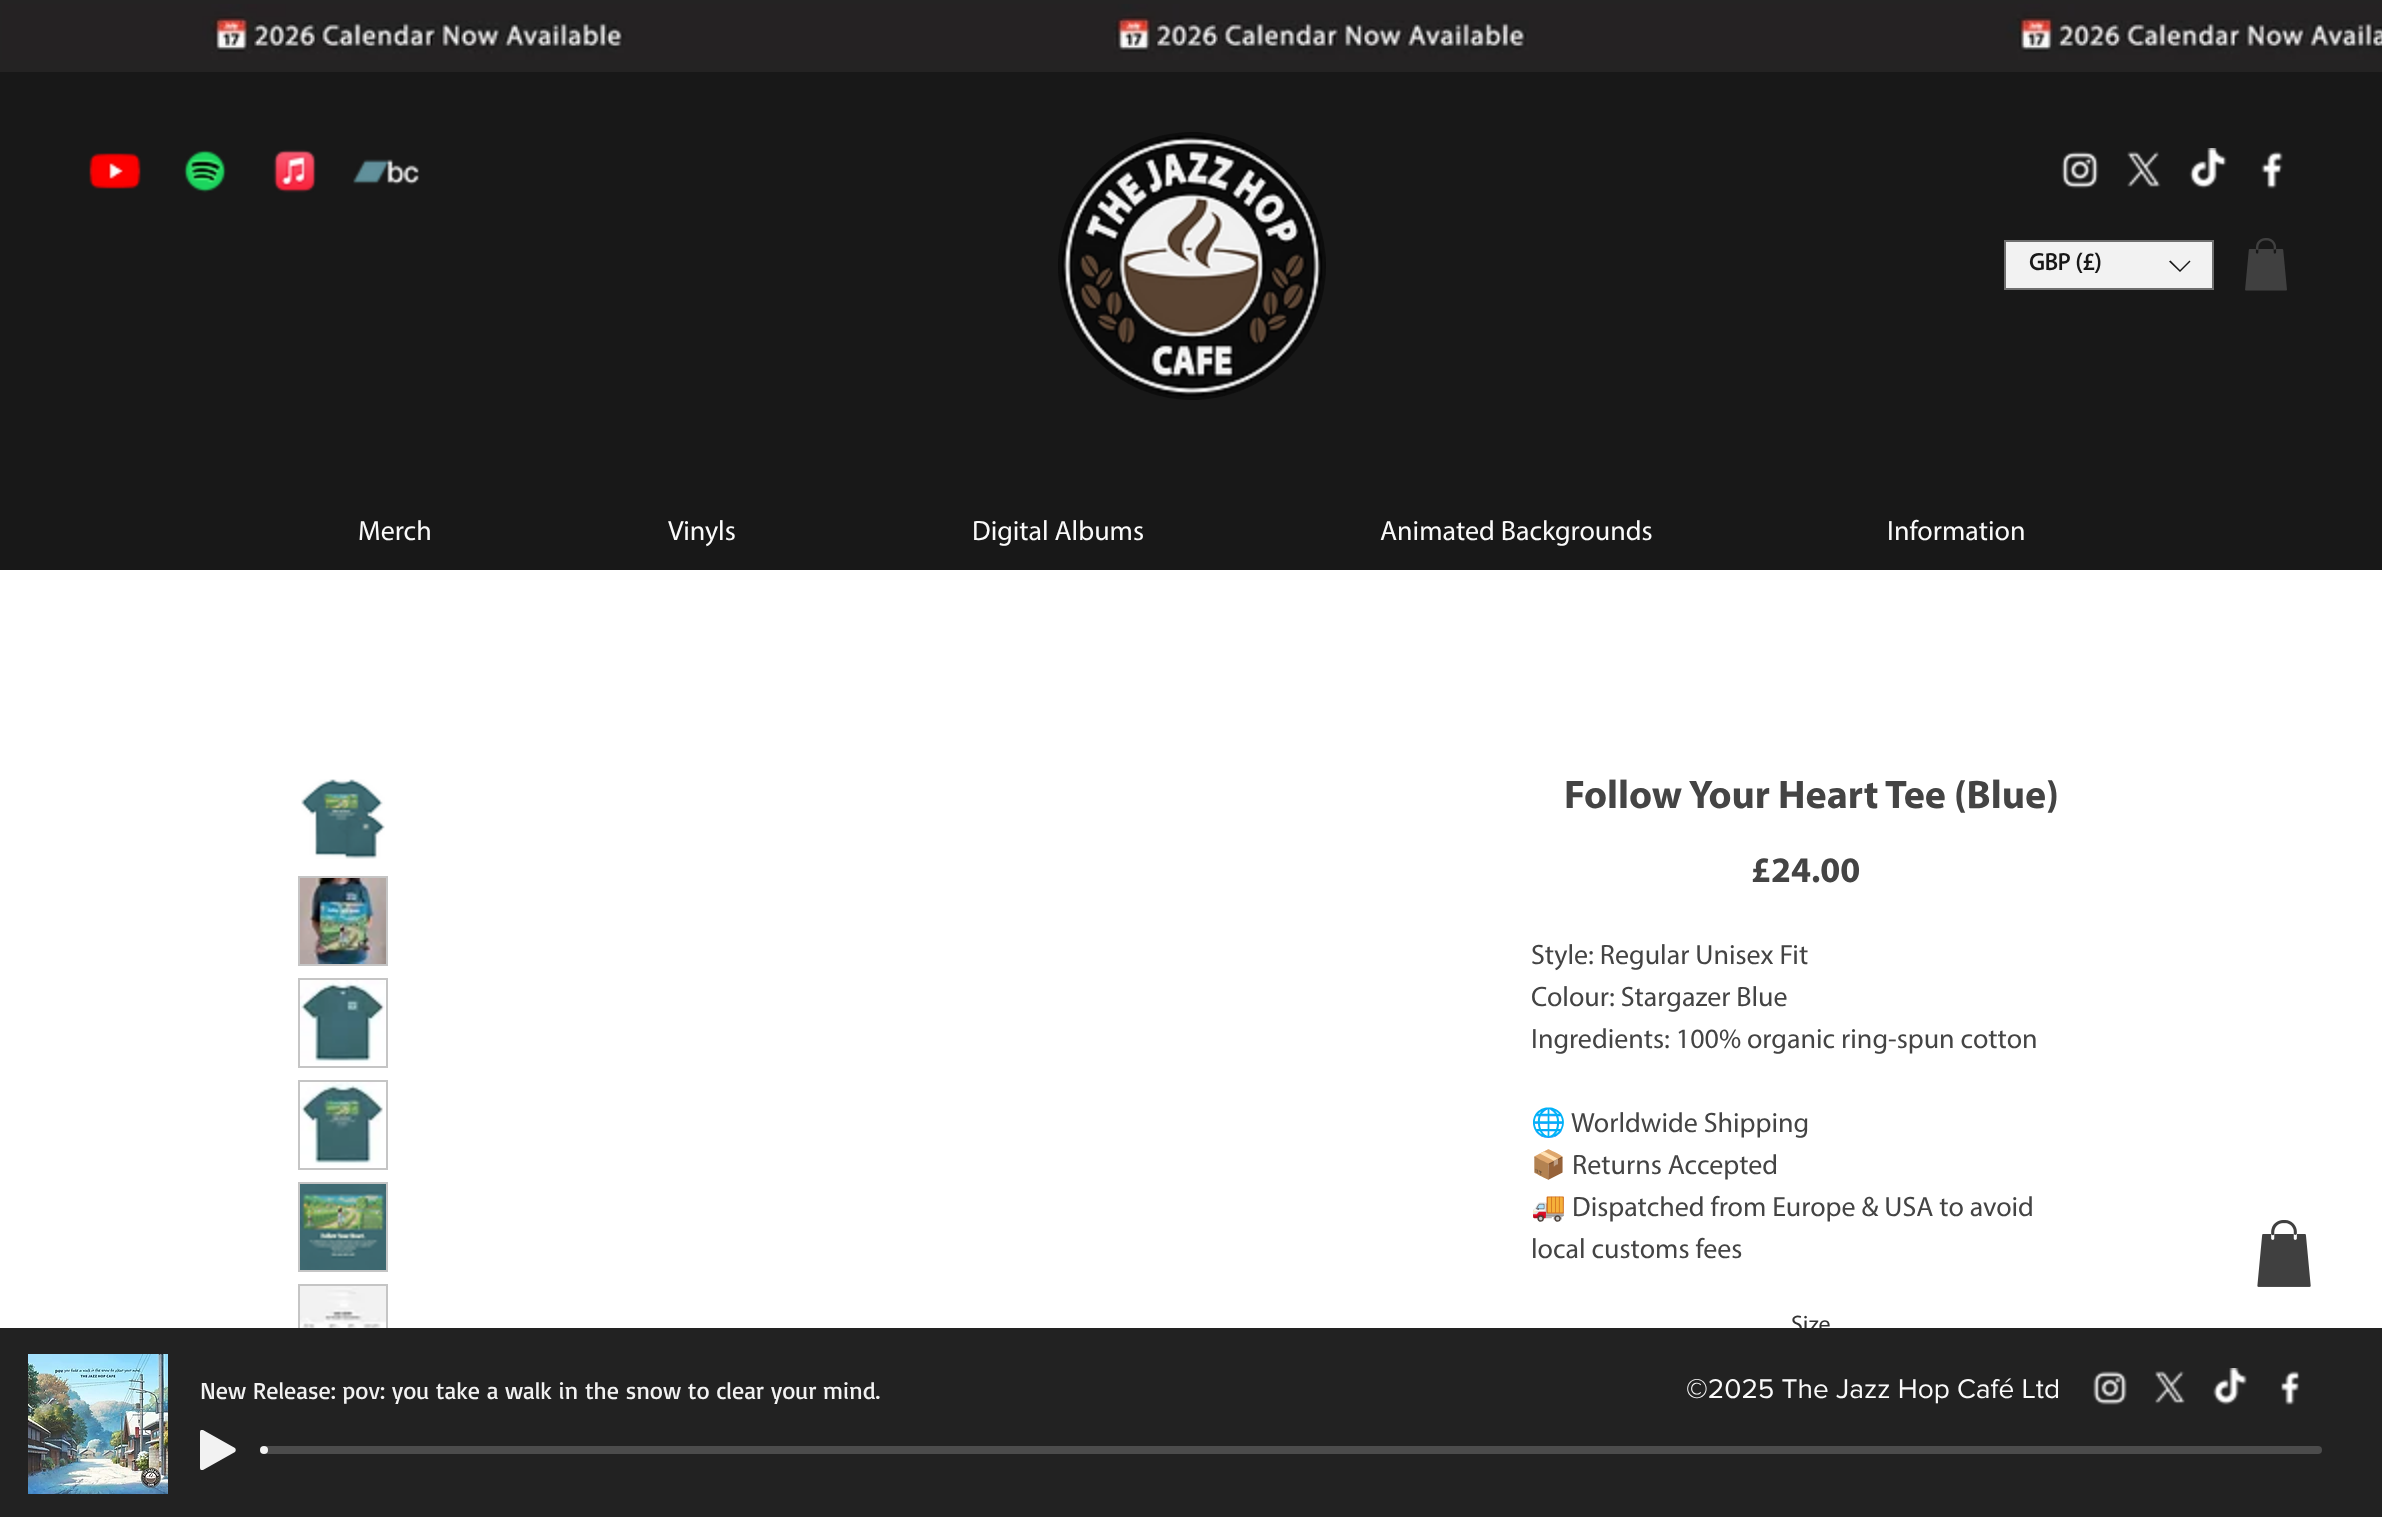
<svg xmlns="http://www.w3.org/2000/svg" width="2382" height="1517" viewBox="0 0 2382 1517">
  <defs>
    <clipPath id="clip1"><rect x="1532" y="936" width="560" height="336"/></clipPath>
    <clipPath id="clip2"><rect x="200" y="1380" width="680" height="24"/></clipPath>
    <clipPath id="clip3"><rect x="200" y="1430" width="36" height="40"/></clipPath>
  </defs>
  <rect width="100%" height="100%" fill="#ffffff"/>
  <rect x="0" y="0" width="2382" height="72" fill="#242323"/>
  <image x="2" y="4" width="2380" height="56" href="img1.png"/>
  <rect x="0" y="72" width="2382" height="498" fill="#181818"/>
  <image x="89" y="153" width="52" height="36" href="img2.png"/>
  <image x="183" y="150" width="44" height="43" href="img3.png"/>
  <image x="273" y="149" width="43" height="44" href="img4.png"/>
  <image x="353" y="159" width="66" height="26" href="img5.png"/>
  <image x="1058" y="132" width="268" height="268" href="img6.png"/>
  <image x="2061" y="151" width="38" height="38" href="img7.png"/>
  <image x="2127" y="151" width="34" height="36" href="img8.png"/>
  <image x="2189" y="148" width="38" height="41" href="img9.png"/>
  <image x="2261" y="151" width="22" height="38" href="img10.png"/>
  <rect x="2005" y="241" width="208" height="48" fill="#f2f2f2" stroke="#6f6f6f" stroke-width="2"/>
  <text x="2029" y="270" font-family="Myriad" font-size="24" font-weight="bold" fill="#181818">GBP (£)</text>
  <path d="M2189.5 260.5L2190.5 261.5L2180 272L2169 261.5L2170.5 260.5L2180 270Z" fill="#181818" fill-rule="evenodd"/>
  <image x="2245" y="238" width="42" height="53" href="img11.png"/>
  <text x="358" y="540" font-family="Myriad" font-size="28" fill="#fafafa">Merch</text>
  <text x="668" y="540" font-family="Myriad" font-size="28" fill="#fafafa">Vinyls</text>
  <text x="972" y="540" font-family="Myriad" font-size="28" fill="#fafafa">Digital Albums</text>
  <text x="1380" y="540" font-family="Myriad" font-size="28" fill="#fafafa">Animated Backgrounds</text>
  <text x="1887" y="540" font-family="Myriad" font-size="28" fill="#fafafa">Information</text>
  <image x="301" y="779" width="84" height="80" href="img12.png"/>
  <rect x="299" y="877" width="88" height="88" fill="none" stroke="#c5c5c5" stroke-width="2"/>
  <image x="300" y="878" width="86" height="86" href="img13.png"/>
  <rect x="299" y="979" width="88" height="88" fill="none" stroke="#c5c5c5" stroke-width="2"/>
  <image x="300" y="980" width="85" height="83" href="img14.png"/>
  <rect x="299" y="1081" width="88" height="88" fill="none" stroke="#c5c5c5" stroke-width="2"/>
  <image x="300" y="1082" width="83" height="83" href="img15.png"/>
  <rect x="299" y="1183" width="88" height="88" fill="none" stroke="#c5c5c5" stroke-width="2"/>
  <image x="300" y="1184" width="86" height="86" href="img16.png"/>
  <rect x="299" y="1285" width="88" height="88" fill="none" stroke="#c5c5c5" stroke-width="2"/>
  <image x="300" y="1286" width="86" height="42" href="img17.png"/>
  <text x="1564" y="808" font-family="'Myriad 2'" font-size="40" font-weight="bold" fill="#444444">Follow Your Heart Tee (Blue)</text>
  <text x="1751" y="882" font-family="'Myriad 2'" font-size="36" font-weight="bold" fill="#444444">£24.00</text>
  <text x="1531" y="964" font-family="'Myriad 2'" font-size="28" fill="#444444">Style: Regular Unisex Fit</text>
  <text x="1531" y="1006" font-family="'Myriad 2'" font-size="28" fill="#444444">Colour: Stargazer Blue</text>
  <text x="1531" y="1048" font-family="'Myriad 2'" font-size="28" fill="#444444">Ingredients: 100% organic ring-spun cotton</text>
  <g clip-path="url(#clip1)">
    <text x="1531" y="1132" font-family="Noto Color Emoji" font-size="28" fill="#444444">🌐</text>
  </g>
  <text x="1571" y="1132" font-family="'Myriad 2'" font-size="28" fill="#444444">Worldwide Shipping</text>
  <g clip-path="url(#clip1)">
    <text x="1531" y="1174" font-family="Noto Color Emoji" font-size="28" fill="#444444">📦</text>
  </g>
  <text x="1572" y="1174" font-family="'Myriad 2'" font-size="28" fill="#444444">Returns Accepted</text>
  <g clip-path="url(#clip1)">
    <text x="1531" y="1216" font-family="Noto Color Emoji" font-size="28" fill="#444444">🚚</text>
  </g>
  <text x="1572" y="1216" font-family="'Myriad 2'" font-size="28" fill="#444444">Dispatched from Europe &amp; USA to avoid</text>
  <text x="1531" y="1258" font-family="'Myriad 2'" font-size="28" fill="#444444">local customs fees</text>
  <text x="1791" y="1332" font-family="'Myriad 2'" font-size="24" fill="#323232">Size</text>
  <image x="2257" y="1220" width="54" height="67" href="img18.png"/>
  <rect x="0" y="1328" width="2382" height="189" fill="#222222"/>
  <image x="28" y="1354" width="140" height="140" href="img19.png"/>
  <g clip-path="url(#clip2)">
    <text x="200" y="1399" font-family="Basic" font-size="24" fill="#f2f2f2">New Release: pov: you take a walk in the snow to clear your mind.</text>
  </g>
  <g clip-path="url(#clip3)">
    <path d="M235 1448C236 1449 236 1451 235 1452L203 1470C202 1471 200 1470 200 1468V1432C200 1430 202 1429 203 1430Z" fill="#f2f2f2"/>
  </g>
  <rect x="264" y="1446" width="2058" height="8" rx="4" fill="#4c4c4c"/>
  <circle cx="264" cy="1450" r="4" fill="#f2f2f2"/>
  <text x="1686" y="1398" font-family="'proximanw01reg'" font-size="28" fill="#fafafa">©2025 The Jazz Hop Café Ltd</text>
  <image x="2093" y="1371" width="34" height="34" href="img20.png"/>
  <image x="2155" y="1371" width="30" height="33" href="img21.png"/>
  <image x="2213" y="1368" width="34" height="37" href="img22.png"/>
  <image x="2281" y="1371" width="19" height="34" href="img23.png"/>
</svg>
